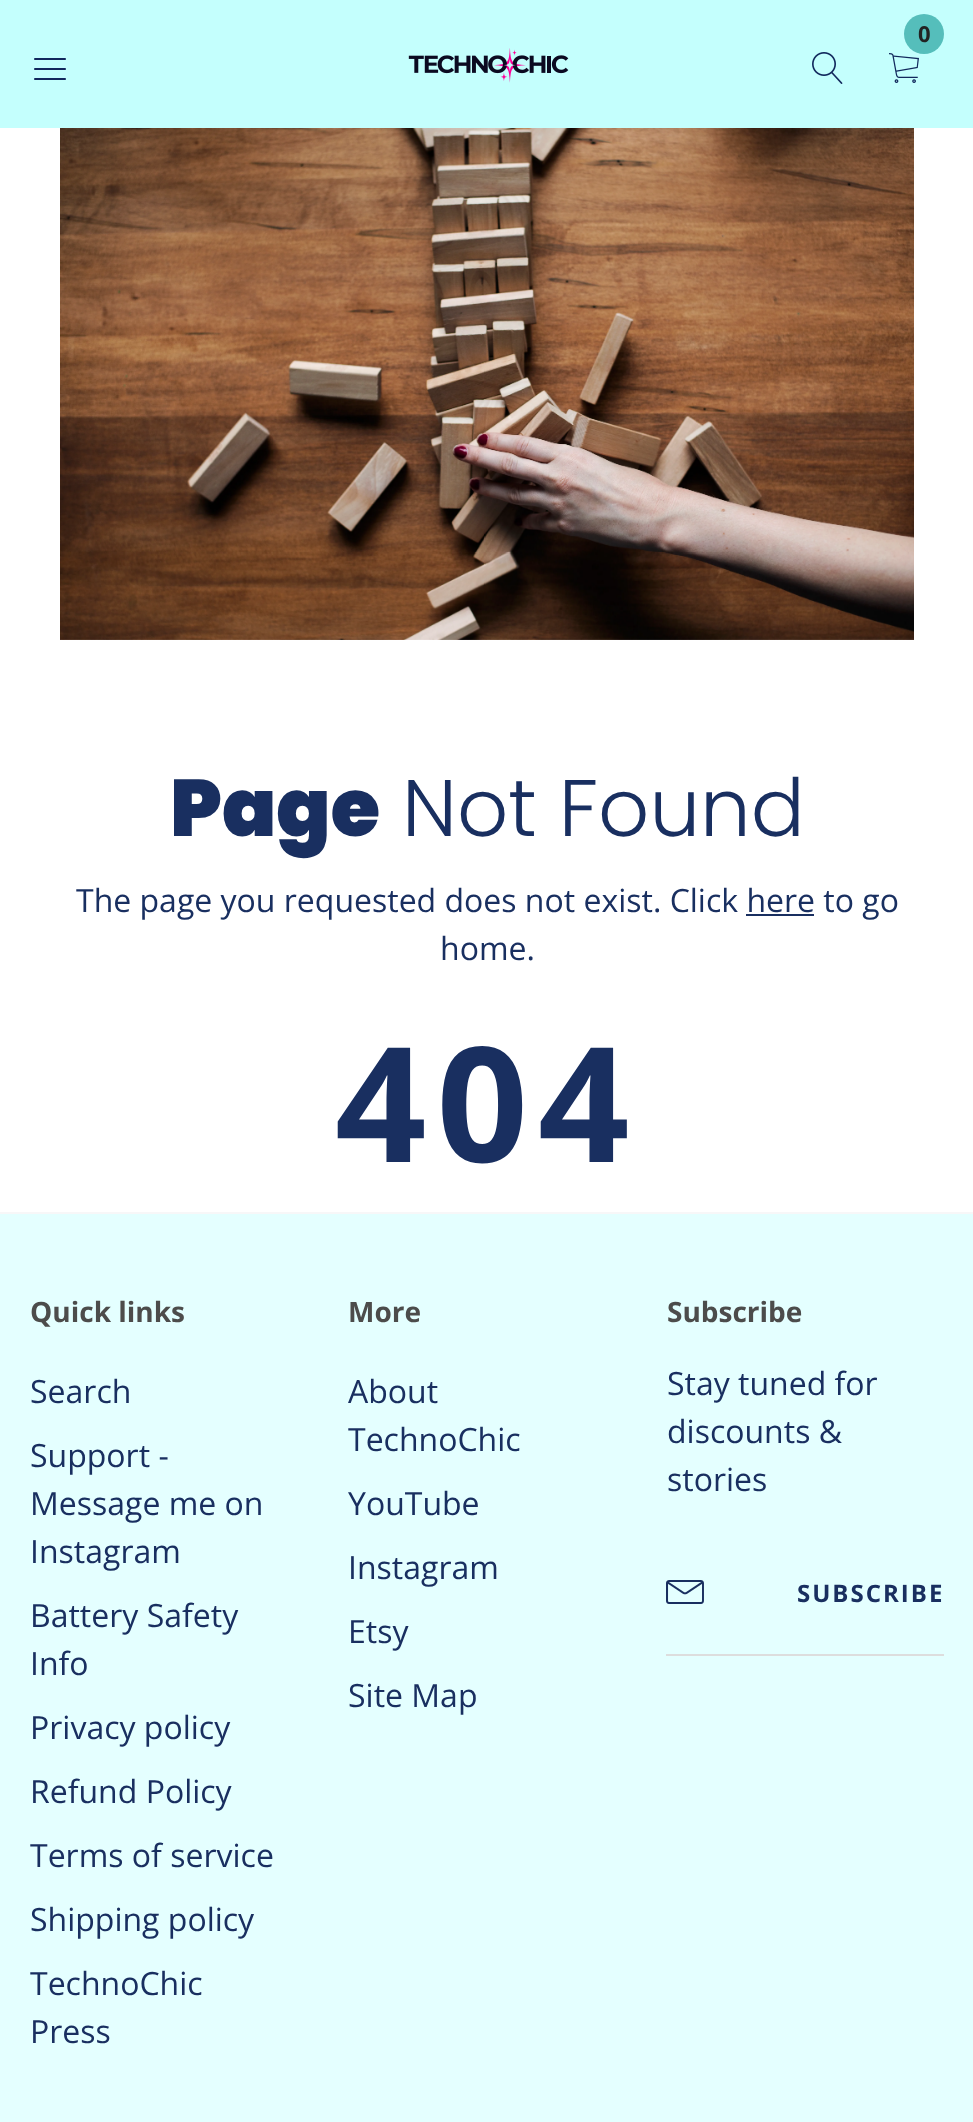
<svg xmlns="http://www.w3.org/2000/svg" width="973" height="2122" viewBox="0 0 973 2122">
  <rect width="100%" height="100%" fill="#ffffff"/>
  <rect x="0" y="0" width="973" height="128" fill="#c4fffd"/>
  <image x="889" y="53" width="30" height="30" href="img1.png"/>
  <circle cx="924" cy="34" r="20" fill="#55bebb"/>
  <text x="918" y="42" font-family="Open Sans" font-size="22" font-weight="bold" fill="#222222">0</text>
  <image x="812" y="52" width="31" height="32" href="img2.png"/>
  <image x="34" y="58" width="32" height="22" href="img3.png"/>
  <image x="408" y="48" width="161" height="35" href="img4.png"/>
  <image x="60" y="128" width="854" height="512" href="img5.png"/>
  <text x="170" y="836" font-family="Poppins" font-size="80" font-weight="900" fill="#192f60">Page</text>
  <text x="402" y="836" font-family="Poppins" font-size="80" font-weight="300" fill="#192f60">Not Found</text>
  <text x="76" y="912" font-family="Open Sans" font-size="32" fill="#192f60">The page you requested does not exist. Click here to go</text>
  <rect x="746" y="914" width="68" height="2" fill="#192f60"/>
  <text x="440" y="960" font-family="Open Sans" font-size="32" fill="#192f60">home.</text>
  <text x="335" y="1162" font-family="Open Sans" font-size="160" font-weight="bold" letter-spacing="10" fill="#192f60">404</text>
  <rect x="0" y="1214" width="973" height="908" fill="#e4ffff"/>
  <rect x="0" y="1212" width="973" height="2" fill="#f7f7f8"/>
  <text x="30" y="1322" font-family="Open Sans" font-size="28" font-weight="bold" fill="#4c4c4b">Quick links</text>
  <text x="30" y="1403" font-family="Open Sans" font-size="32" fill="#192f60">Search</text>
  <text x="30" y="1467" font-family="Open Sans" font-size="32" fill="#192f60">Support -</text>
  <text x="30" y="1515" font-family="Open Sans" font-size="32" fill="#192f60">Message me on</text>
  <text x="30" y="1563" font-family="Open Sans" font-size="32" fill="#192f60">Instagram</text>
  <text x="30" y="1627" font-family="Open Sans" font-size="32" fill="#192f60">Battery Safety</text>
  <text x="30" y="1675" font-family="Open Sans" font-size="32" fill="#192f60">Info</text>
  <text x="30" y="1739" font-family="Open Sans" font-size="32" fill="#192f60">Privacy policy</text>
  <text x="30" y="1803" font-family="Open Sans" font-size="32" fill="#192f60">Refund Policy</text>
  <text x="30" y="1867" font-family="Open Sans" font-size="32" fill="#192f60">Terms of service</text>
  <text x="30" y="1931" font-family="Open Sans" font-size="32" fill="#192f60">Shipping policy</text>
  <text x="30" y="1995" font-family="Open Sans" font-size="32" fill="#192f60">TechnoChic</text>
  <text x="30" y="2043" font-family="Open Sans" font-size="32" fill="#192f60">Press</text>
  <text x="348" y="1322" font-family="Open Sans" font-size="28" font-weight="bold" fill="#4c4c4b">More</text>
  <text x="348" y="1403" font-family="Open Sans" font-size="32" fill="#192f60">About</text>
  <text x="348" y="1451" font-family="Open Sans" font-size="32" fill="#192f60">TechnoChic</text>
  <text x="348" y="1515" font-family="Open Sans" font-size="32" fill="#192f60">YouTube</text>
  <text x="348" y="1579" font-family="Open Sans" font-size="32" fill="#192f60">Instagram</text>
  <text x="348" y="1643" font-family="Open Sans" font-size="32" fill="#192f60">Etsy</text>
  <text x="348" y="1707" font-family="Open Sans" font-size="32" fill="#192f60">Site Map</text>
  <text x="667" y="1322" font-family="Open Sans" font-size="28" font-weight="bold" fill="#4c4c4b">Subscribe</text>
  <text x="667" y="1395" font-family="Open Sans" font-size="32" fill="#192f60">Stay tuned for</text>
  <text x="667" y="1443" font-family="Open Sans" font-size="32" fill="#192f60">discounts &amp;</text>
  <text x="667" y="1491" font-family="Open Sans" font-size="32" fill="#192f60">stories</text>
  <rect x="666" y="1654" width="278" height="2" fill="#dddddd"/>
  <image x="666" y="1580" width="38" height="24" href="img6.png"/>
  <text x="797" y="1602" font-family="Open Sans" font-size="24" font-weight="bold" letter-spacing="2" fill="#192f60">SUBSCRIBE</text>
</svg>
